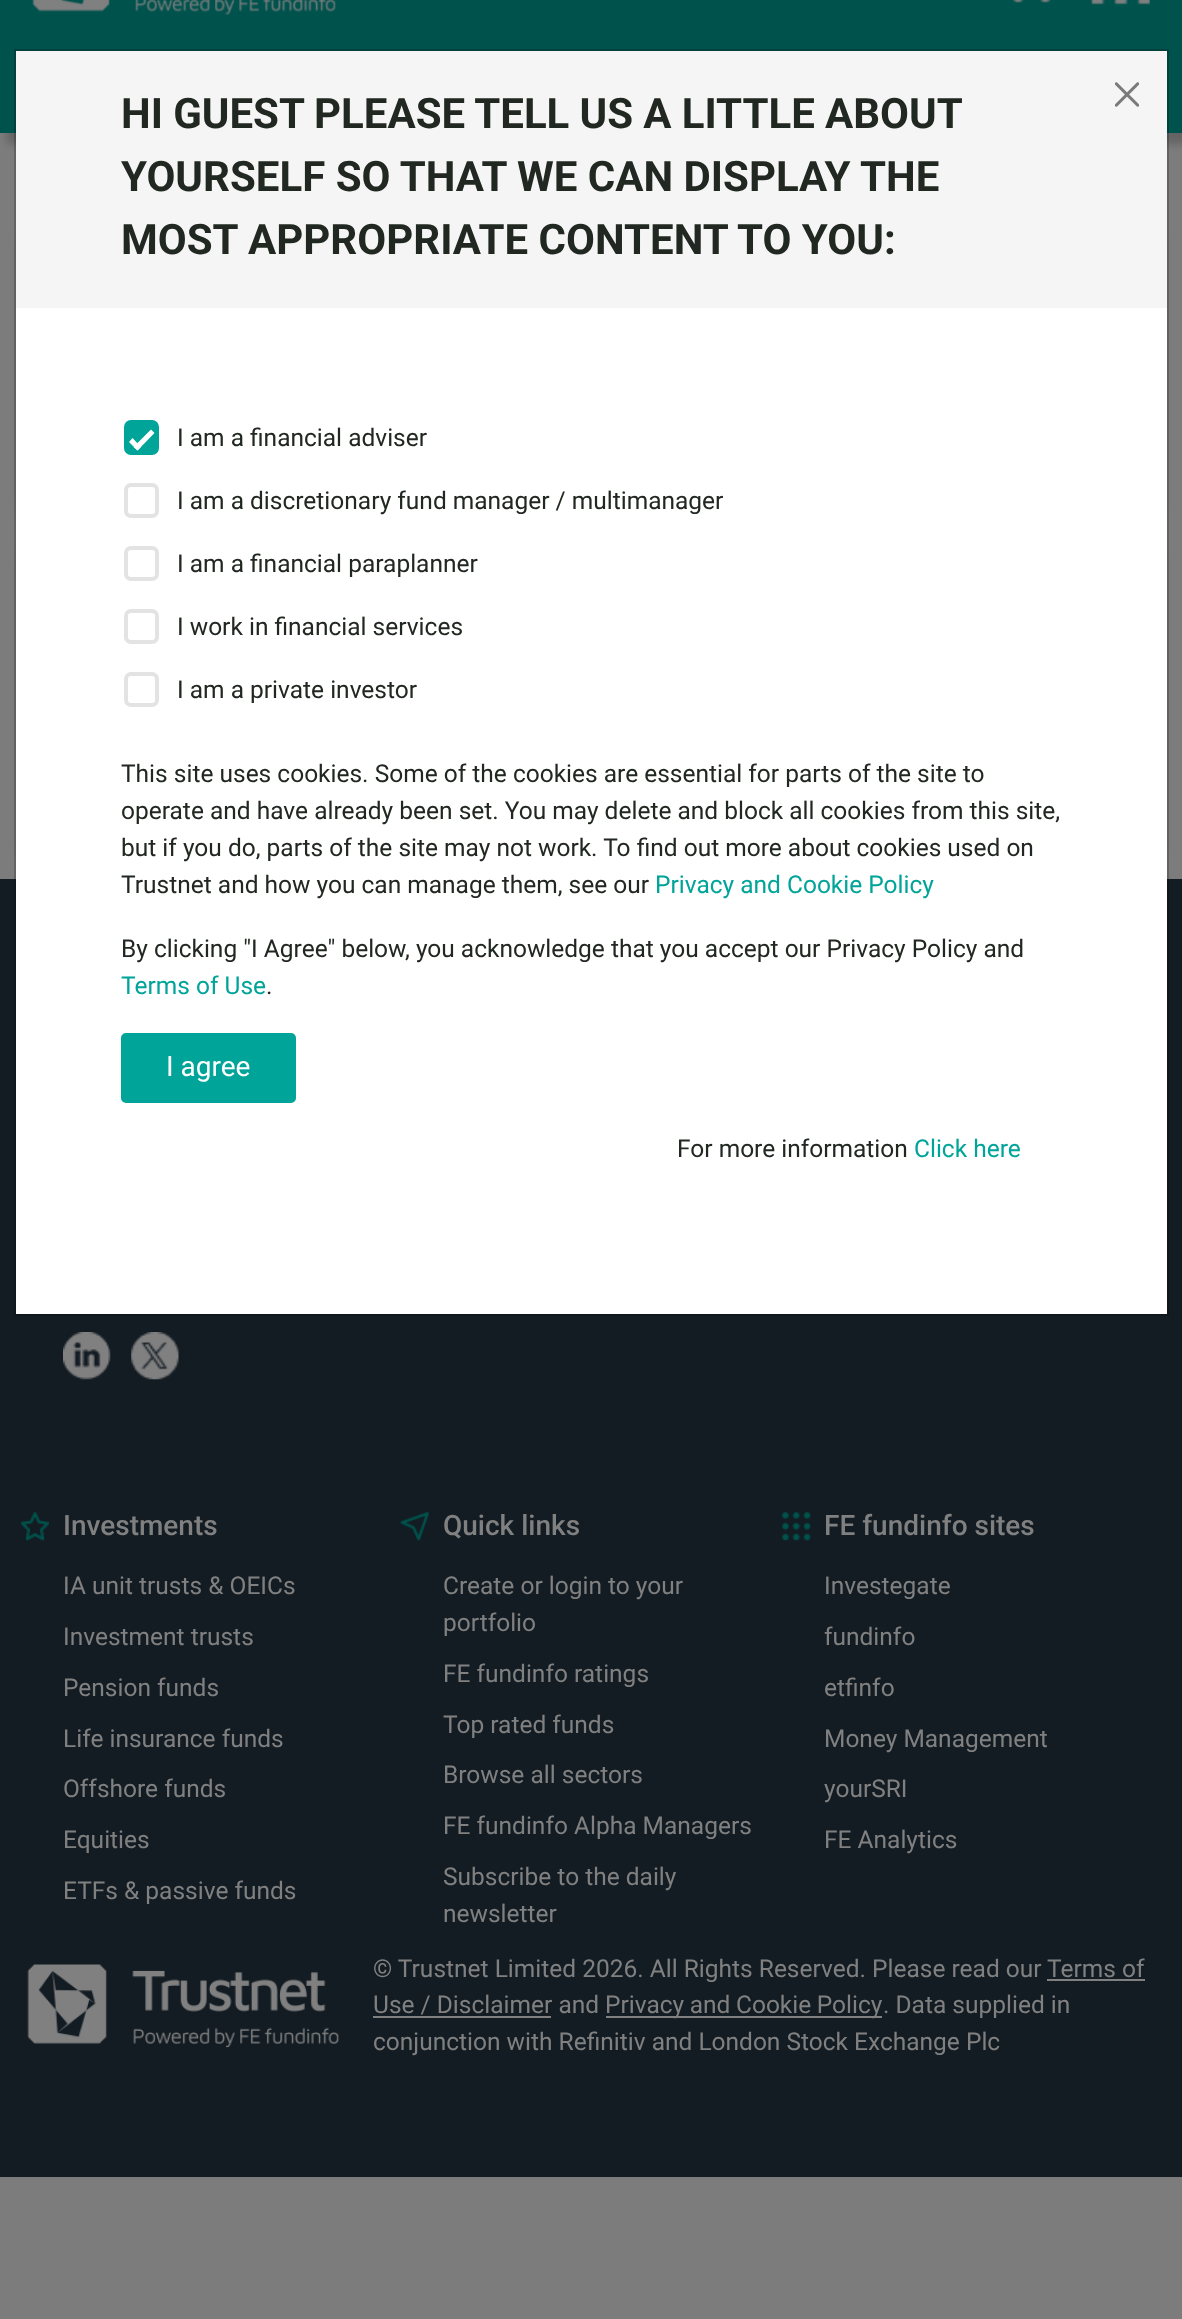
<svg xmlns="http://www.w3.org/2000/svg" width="1182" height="2319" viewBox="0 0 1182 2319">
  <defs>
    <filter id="blur1" x="-50%" y="-200%" width="200%" height="500%"><feGaussianBlur stdDeviation="7"/></filter>
    <filter id="blur2" x="-50%" y="-200%" width="200%" height="500%"><feGaussianBlur stdDeviation="4.5"/></filter>
  </defs>
  <rect width="100%" height="100%" fill="#7c7c7c"/>
  <rect x="21" y="238" width="1141" height="273" rx="5" fill="#000000" fill-opacity="0.1" filter="url(#blur1)"/>
  <rect x="21" y="553" width="1141" height="298" rx="5" fill="#000000" fill-opacity="0.1" filter="url(#blur1)"/>
  <rect x="0" y="879" width="1182" height="1298" fill="#131c23"/>
  <rect x="16" y="308" width="1151" height="1006" fill="#ffffff"/>
  <rect x="0" y="0" width="1182" height="37" fill="#00524d"/>
  <rect x="7" y="47" width="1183" height="97" fill="#000000" fill-opacity="0.2" filter="url(#blur2)"/>
  <rect x="0" y="37" width="1182" height="96" fill="#00524d"/>
  <rect x="15" y="50" width="1153" height="1265" fill="none" stroke="#000000" stroke-opacity="0.2" stroke-width="2"/>
  <rect x="16" y="51" width="1151" height="257" fill="#f5f5f5"/>
  <image x="1115" y="82" width="24" height="25" href="img1.png"/>
  <text x="121" y="128" word-spacing="-0.25" font-family="Roboto" font-size="42" font-weight="bold" fill="#212721">HI GUEST PLEASE TELL US A LITTLE ABOUT</text>
  <text x="121" y="191" font-family="Roboto" font-size="42" font-weight="bold" fill="#212721">YOURSELF SO THAT WE CAN DISPLAY THE</text>
  <text x="121" y="254" font-family="Roboto" font-size="42" font-weight="bold" fill="#212721">MOST APPROPRIATE CONTENT TO YOU:</text>
  <rect x="126" y="422" width="31" height="31" rx="5" fill="#00a499" stroke="#00a499" stroke-width="4"/>
  <path d="M151 429.5L154.5 433L137.5 450.5L133.5 447Z" fill="#ffffff"/>
  <path d="M132.5 438L141 447L137.5 450.5L129 442Z" fill="#ffffff"/>
  <text x="177" y="446" font-family="Roboto" font-size="24.5" fill="#212721">I am a financial adviser</text>
  <rect x="126" y="485" width="31" height="31" rx="5" fill="none" stroke="#e3e3e3" stroke-width="4"/>
  <text x="177" y="509" font-family="Roboto" font-size="24.5" fill="#212721">I am a discretionary fund manager / multimanager</text>
  <rect x="126" y="548" width="31" height="31" rx="5" fill="none" stroke="#e3e3e3" stroke-width="4"/>
  <text x="177" y="572" font-family="Roboto" font-size="24.5" fill="#212721">I am a financial paraplanner</text>
  <rect x="126" y="611" width="31" height="31" rx="5" fill="none" stroke="#e3e3e3" stroke-width="4"/>
  <text x="177" y="635" font-family="Roboto" font-size="24.5" fill="#212721">I work in financial services</text>
  <rect x="126" y="674" width="31" height="31" rx="5" fill="none" stroke="#e3e3e3" stroke-width="4"/>
  <text x="177" y="698" font-family="Roboto" font-size="24.5" fill="#212721">I am a private investor</text>
  <text x="121" y="782" font-family="Roboto" font-size="24.5" fill="#212721">This site uses cookies. Some of the cookies are essential for parts of the site to</text>
  <text x="121" y="819" font-family="Roboto" font-size="24.5" fill="#212721">operate and have already been set. You may delete and block all cookies from this site,</text>
  <text x="121" y="856" font-family="Roboto" font-size="24.5" fill="#212721">but if you do, parts of the site may not work. To find out more about cookies used on</text>
  <text x="121" y="893" font-family="Roboto" font-size="24.5" fill="#212721">Trustnet and how you can manage them, see our</text>
  <text x="655" y="893" font-family="Roboto" font-size="24.5" fill="#00a499">Privacy and Cookie Policy</text>
  <text x="121" y="957" font-family="Roboto" font-size="24.5" fill="#212721">By clicking "I Agree" below, you acknowledge that you accept our Privacy Policy and</text>
  <text x="121" y="994" font-family="Roboto" font-size="24.5" fill="#00a499">Terms of Use</text>
  <text x="266" y="994" font-family="Roboto" font-size="24.5" fill="#212721">.</text>
  <rect x="122" y="1034" width="173" height="68" rx="4" fill="#00a499" stroke="#00a499" stroke-width="2"/>
  <text x="166" y="1076" font-family="Roboto" font-size="28" fill="#ffffff">I agree</text>
  <text x="677" y="1157" font-family="Roboto" font-size="24.5" fill="#212721">For more information</text>
  <text x="914" y="1157" font-family="Roboto" font-size="24.5" fill="#00a499">Click here</text>
  <image x="32" y="0" width="304" height="15" href="img2.png"/>
  <image x="1012" y="0" width="39" height="3" href="img3.png"/>
  <image x="1090" y="0" width="60" height="5" href="img4.png"/>
  <image x="63" y="1332" width="48" height="48" href="img5.png"/>
  <image x="131" y="1332" width="48" height="48" href="img6.png"/>
  <image x="21" y="1512" width="28" height="29" href="img7.png"/>
  <text x="63" y="1535" font-family="Roboto" font-size="28" font-weight="500" fill="#808080">Investments</text>
  <text x="63" y="1594" font-family="Roboto" font-size="24.5" fill="#808080">IA unit trusts &amp; OEICs</text>
  <text x="63" y="1645" font-family="Roboto" font-size="24.5" fill="#808080">Investment trusts</text>
  <text x="63" y="1696" font-family="Roboto" font-size="24.5" fill="#808080">Pension funds</text>
  <text x="63" y="1747" font-family="Roboto" font-size="24.5" fill="#808080">Life insurance funds</text>
  <text x="63" y="1797" font-family="Roboto" font-size="24.5" fill="#808080">Offshore funds</text>
  <text x="63" y="1848" font-family="Roboto" font-size="24.5" fill="#808080">Equities</text>
  <text x="63" y="1899" font-family="Roboto" font-size="24.5" fill="#808080">ETFs &amp; passive funds</text>
  <image x="400" y="1512" width="29" height="29" href="img8.png"/>
  <text x="443" y="1535" font-family="Roboto" font-size="28" font-weight="500" fill="#808080">Quick links</text>
  <text x="443" y="1594" font-family="Roboto" font-size="24.5" fill="#808080">Create or login to your</text>
  <text x="443" y="1631" font-family="Roboto" font-size="24.5" fill="#808080">portfolio</text>
  <text x="443" y="1682" font-family="Roboto" font-size="24.5" fill="#808080">FE fundinfo ratings</text>
  <text x="443" y="1733" font-family="Roboto" font-size="24.5" fill="#808080">Top rated funds</text>
  <text x="443" y="1783" font-family="Roboto" font-size="24.5" fill="#808080">Browse all sectors</text>
  <text x="443" y="1834" font-family="Roboto" font-size="24.5" fill="#808080">FE fundinfo Alpha Managers</text>
  <text x="443" y="1885" font-family="Roboto" font-size="24.5" fill="#808080">Subscribe to the daily</text>
  <text x="443" y="1922" font-family="Roboto" font-size="24.5" fill="#808080">newsletter</text>
  <image x="782" y="1512" width="29" height="29" href="img9.png"/>
  <text x="824" y="1535" font-family="Roboto" font-size="28" font-weight="500" fill="#808080">FE fundinfo sites</text>
  <text x="824" y="1594" font-family="Roboto" font-size="24.5" fill="#808080">Investegate</text>
  <text x="824" y="1645" font-family="Roboto" font-size="24.5" fill="#808080">fundinfo</text>
  <text x="824" y="1696" font-family="Roboto" font-size="24.5" fill="#808080">etfinfo</text>
  <text x="824" y="1747" font-family="Roboto" font-size="24.5" fill="#808080">Money Management</text>
  <text x="824" y="1797" font-family="Roboto" font-size="24.5" fill="#808080">yourSRI</text>
  <text x="824" y="1848" font-family="Roboto" font-size="24.5" fill="#808080">FE Analytics</text>
  <image x="27" y="1964" width="312" height="84" href="img10.png"/>
  <text x="373" y="1977" font-family="Roboto" font-size="24.5" fill="#808080">© Trustnet Limited 2026. All Rights Reserved. Please read our</text>
  <text x="1047" y="1977" font-family="Roboto" font-size="24.5" fill="#808080">Terms of</text>
  <rect x="1047" y="1979" width="98" height="2" fill="#808080"/>
  <text x="373" y="2013" font-family="Roboto" font-size="24.5" fill="#808080">Use / Disclaimer and</text>
  <rect x="373" y="2016" width="178" height="2" fill="#808080"/>
  <rect x="606" y="2016" width="276" height="2" fill="#808080"/>
  <text x="605" y="2013" word-spacing="-0.5" font-family="Roboto" font-size="24.5" fill="#808080">Privacy and Cookie Policy</text>
  <text x="883" y="2013" font-family="Roboto" font-size="24.5" fill="#808080">. Data supplied in</text>
  <text x="373" y="2050" font-family="Roboto" font-size="24.5" fill="#808080">conjunction with Refinitiv and London Stock Exchange Plc</text>
</svg>
